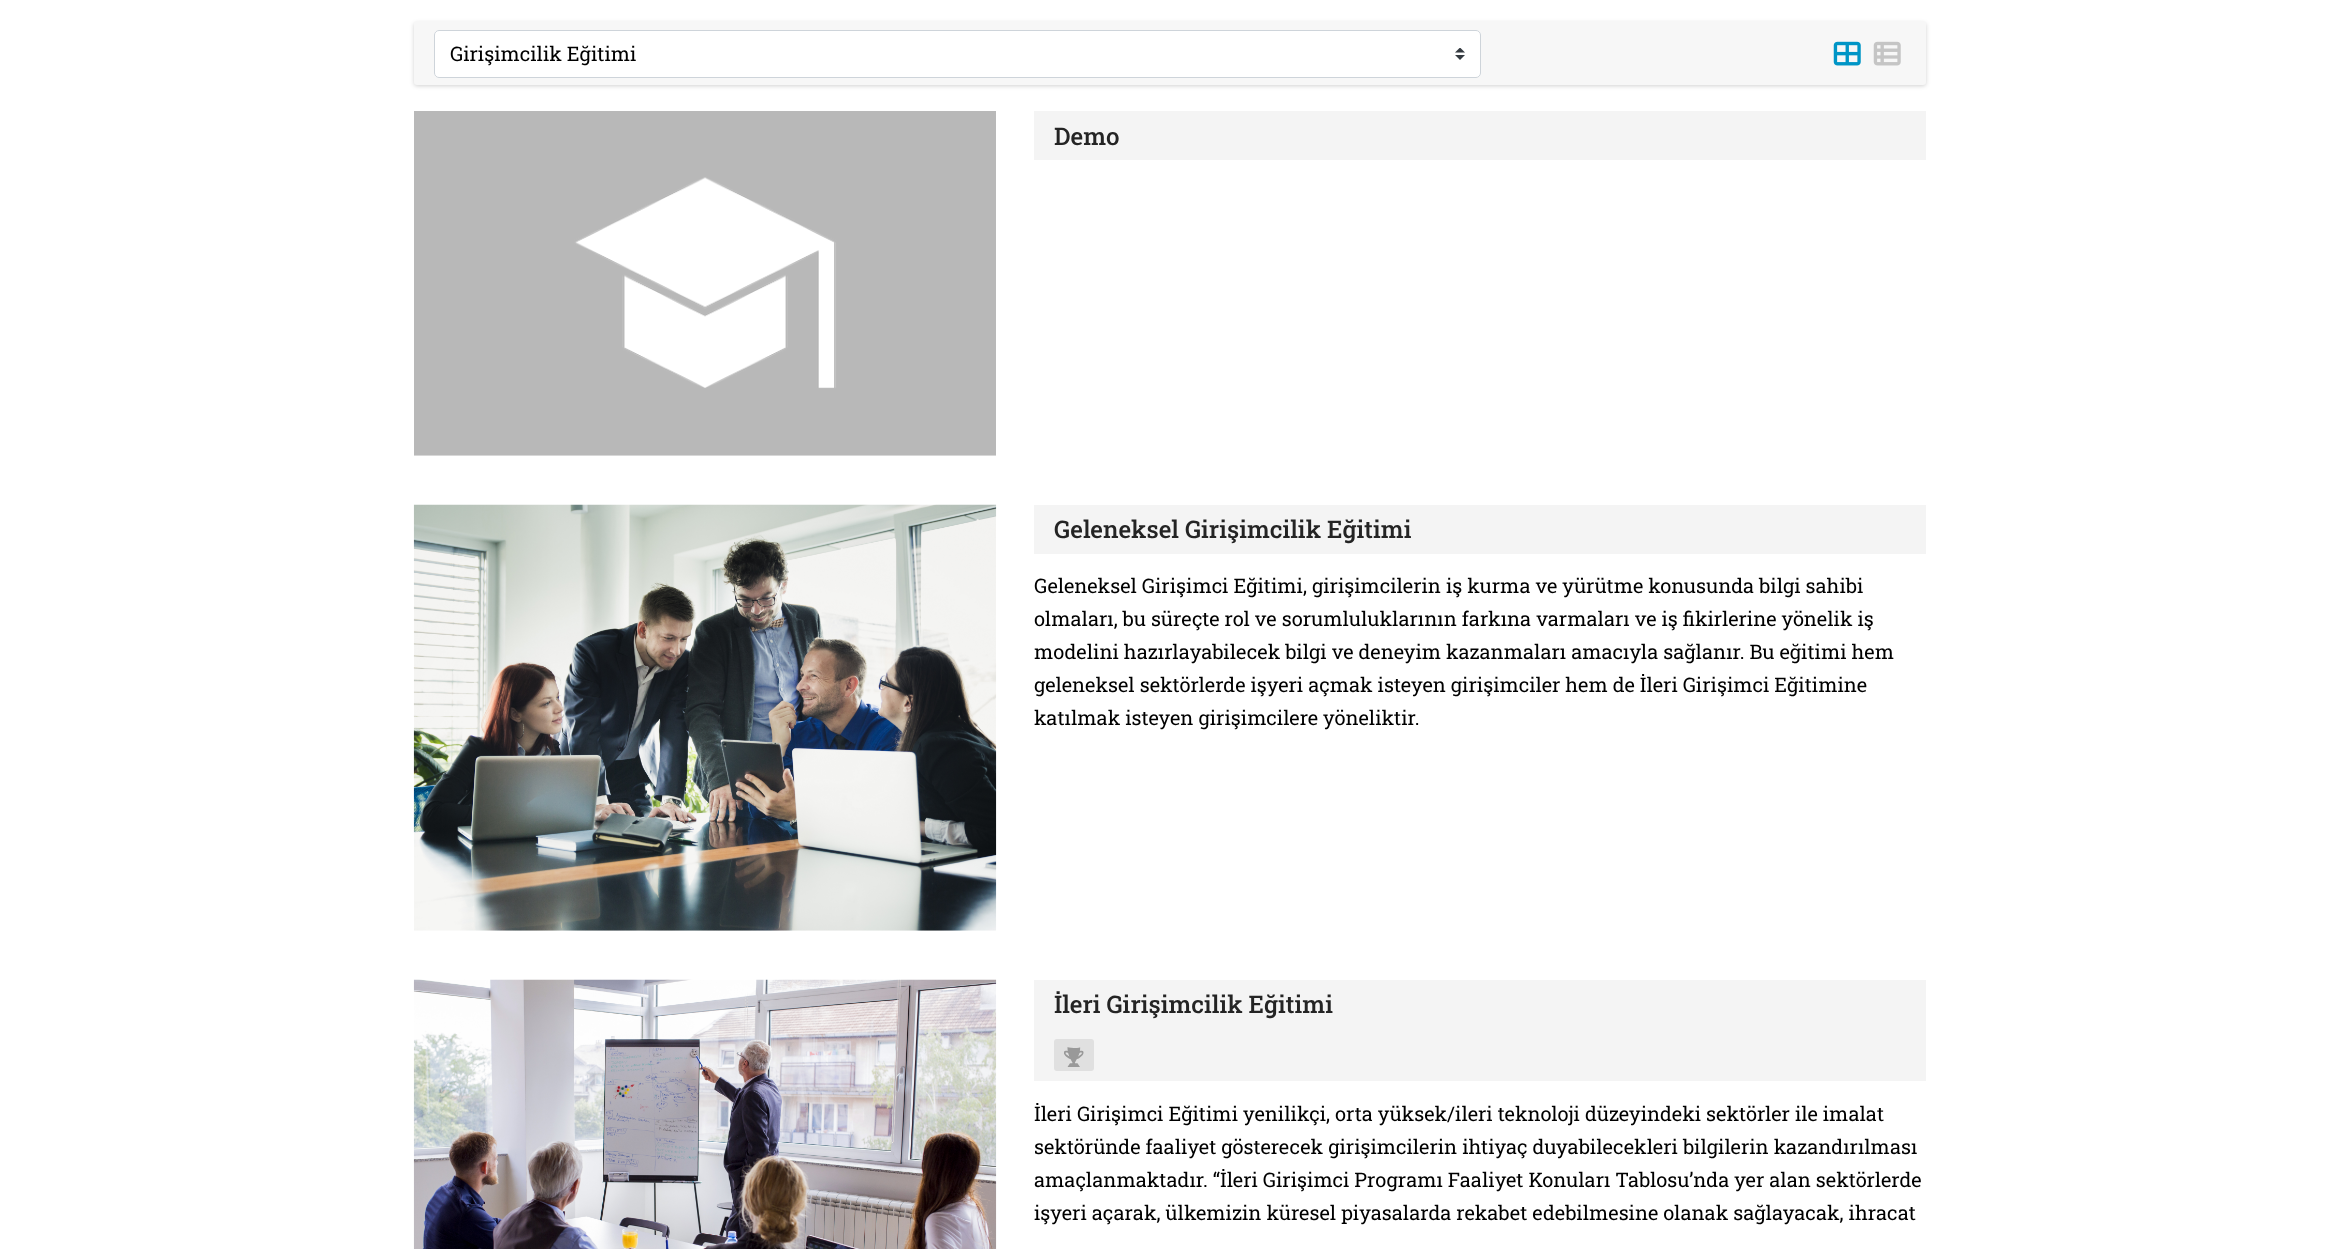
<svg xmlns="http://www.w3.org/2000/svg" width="2340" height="1249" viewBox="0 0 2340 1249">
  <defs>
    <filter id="blur1" x="-50%" y="-200%" width="200%" height="500%"><feGaussianBlur stdDeviation="2"/></filter>
  </defs>
  <rect width="100%" height="100%" fill="#ffffff"/>
  <rect x="414" y="23" width="1512" height="63" rx="3" fill="#000000" fill-opacity="0.18" filter="url(#blur1)"/>
  <rect x="414" y="21" width="1512" height="64" rx="3" fill="#f7f7f7"/>
  <rect x="434" y="30" width="1047" height="48" rx="5" fill="#ffffff"/>
  <image x="1455" y="48" width="10" height="12" href="img1.png"/>
  <rect x="434.5" y="30.5" width="1046" height="47" rx="4.5" fill="none" stroke="#ced4da"/>
  <text x="450" y="61" font-family="Roboto Slab" font-size="20" fill="#000000">Girişimcilik Eğitimi</text>
  <image x="1833" y="41" width="28" height="25" href="img2.png"/>
  <image x="1873" y="41" width="28" height="25" href="img3.png"/>
  <image x="414" y="111" width="582" height="345" href="img4.png"/>
  <rect x="1034" y="111" width="892" height="49" fill="#f4f4f4"/>
  <text x="1054" y="145" font-family="Roboto Slab" font-size="24.2" font-weight="500" fill="#242424">Demo</text>
  <image x="413" y="504" width="584" height="427" href="img5.png"/>
  <rect x="1034" y="505" width="892" height="49" fill="#f4f4f4"/>
  <text x="1054" y="538" font-family="Roboto Slab" font-size="24.2" font-weight="500" fill="#242424">Geleneksel Girişimcilik Eğitimi</text>
  <text x="1034" y="593" font-family="Roboto Slab" font-size="20" fill="#000000">Geleneksel Girişimci Eğitimi, girişimcilerin iş kurma ve yürütme konusunda bilgi sahibi</text>
  <text x="1034" y="626" font-family="Roboto Slab" font-size="20" fill="#000000">olmaları, bu süreçte rol ve sorumluluklarının farkına varmaları ve iş fikirlerine yönelik iş</text>
  <text x="1034" y="659" font-family="Roboto Slab" font-size="20" fill="#000000">modelini hazırlayabilecek bilgi ve deneyim kazanmaları amacıyla sağlanır. Bu eğitimi hem</text>
  <text x="1034" y="692" font-family="Roboto Slab" font-size="20" fill="#000000">geleneksel sektörlerde işyeri açmak isteyen girişimciler hem de İleri Girişimci Eğitimine</text>
  <text x="1034" y="725" font-family="Roboto Slab" font-size="20" fill="#000000">katılmak isteyen girişimcilere yöneliktir.</text>
  <image x="413" y="979" width="584" height="270" href="img6.png"/>
  <rect x="1034" y="980" width="892" height="101" fill="#f4f4f4"/>
  <text x="1054" y="1013" font-family="Roboto Slab" font-size="24.2" font-weight="500" fill="#242424">İleri Girişimcilik Eğitimi</text>
  <rect x="1054" y="1039" width="40" height="32" rx="3" fill="#e0e0e0"/>
  <image x="1064" y="1047" width="20" height="20" href="img7.png"/>
  <text x="1034" y="1121" font-family="Roboto Slab" font-size="20" fill="#000000">İleri Girişimci Eğitimi yenilikçi, orta yüksek/ileri teknoloji düzeyindeki sektörler ile imalat</text>
  <text x="1034" y="1154" font-family="Roboto Slab" font-size="20" fill="#000000">sektöründe faaliyet gösterecek girişimcilerin ihtiyaç duyabilecekleri bilgilerin kazandırılması</text>
  <text x="1034" y="1187" font-family="Roboto Slab" font-size="20" fill="#000000">amaçlanmaktadır. “İleri Girişimci Programı Faaliyet Konuları Tablosu’nda yer alan sektörlerde</text>
  <text x="1034" y="1220" font-family="Roboto Slab" font-size="20" fill="#000000">işyeri açarak, ülkemizin küresel piyasalarda rekabet edebilmesine olanak sağlayacak, ihracat</text>
</svg>
